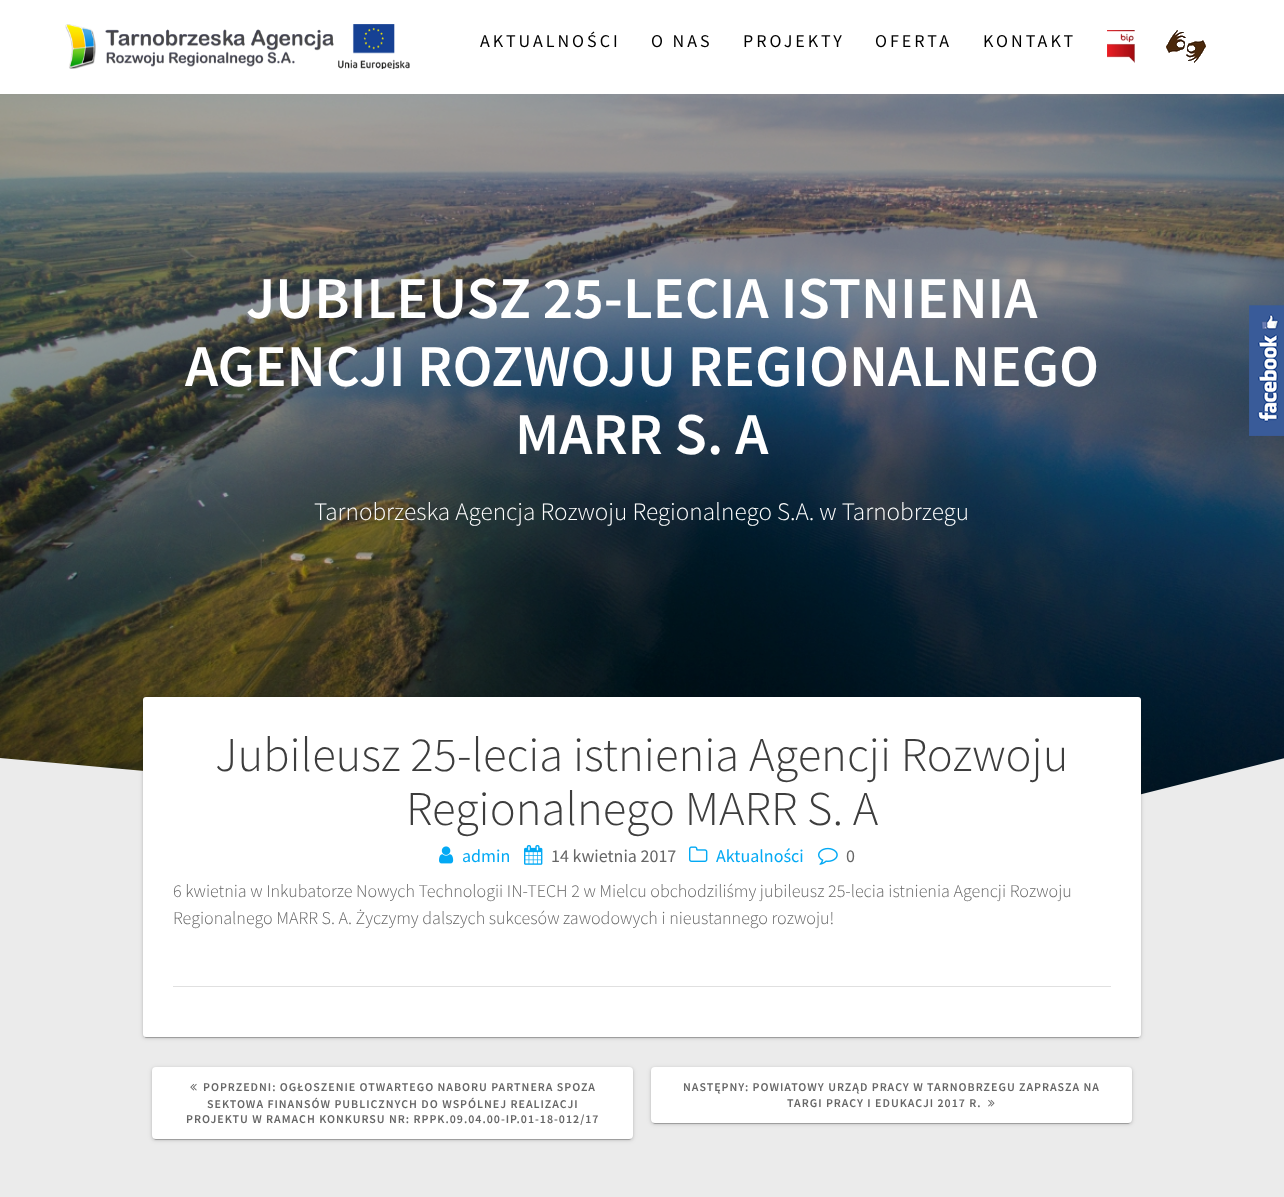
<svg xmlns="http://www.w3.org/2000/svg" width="1284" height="1197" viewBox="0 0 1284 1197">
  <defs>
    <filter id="blur1" x="-50%" y="-200%" width="200%" height="500%"><feGaussianBlur stdDeviation="2.5"/></filter>
    <filter id="blur2" x="-50%" y="-200%" width="200%" height="500%"><feGaussianBlur stdDeviation="0.5"/></filter>
    <filter id="blur3" x="-50%" y="-200%" width="200%" height="500%"><feGaussianBlur stdDeviation="1"/></filter>
  </defs>
  <rect width="100%" height="100%" fill="#ffffff"/>
  <image x="65" y="24" width="345" height="45" href="img1.png"/>
  <text x="480" y="47" font-family="Source Sans Pro" font-size="18" letter-spacing="3" fill="#000000">AKTUALNOŚCI</text>
  <text x="651" y="47" font-family="Source Sans Pro" font-size="18" letter-spacing="3" fill="#000000">O NAS</text>
  <text x="743" y="47" font-family="Source Sans Pro" font-size="18" letter-spacing="3" fill="#000000">PROJEKTY</text>
  <text x="875" y="47" font-family="Source Sans Pro" font-size="18" letter-spacing="3" fill="#000000">OFERTA</text>
  <text x="983" y="47" font-family="Source Sans Pro" font-size="18" letter-spacing="3" fill="#000000">KONTAKT</text>
  <image x="1107" y="30" width="28" height="33" href="img2.png"/>
  <image x="1166" y="30" width="40" height="33" href="img3.png"/>
  <image x="0" y="94" width="1284" height="701" href="img4.png"/>
  <text x="246" y="318" font-family="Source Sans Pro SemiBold" font-size="59.4" font-weight="600" fill="#ffffff">JUBILEUSZ 25-LECIA ISTNIENIA</text>
  <text x="185" y="386" font-family="Source Sans Pro SemiBold" font-size="59.4" font-weight="600" fill="#ffffff">AGENCJI ROZWOJU REGIONALNEGO</text>
  <text x="515" y="454" font-family="Source Sans Pro SemiBold" font-size="59.4" font-weight="600" fill="#ffffff">MARR S. A</text>
  <text x="314" y="520" font-family="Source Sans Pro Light" font-size="25.2" font-weight="300" fill="#ffffff">Tarnobrzeska Agencja Rozwoju Regionalnego S.A. w Tarnobrzegu</text>
  <path d="M948 843L0 758V848H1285V758Z" fill="#ebebeb"/>
  <image x="1249" y="305" width="35" height="131" href="img5.png"/>
  <rect x="0" y="848" width="1284" height="349" fill="#ebebeb"/>
  <rect x="143" y="698" width="998" height="340" rx="3" fill="#000000" fill-opacity="0.12" filter="url(#blur1)"/>
  <rect x="145" y="702" width="994" height="336" rx="1" fill="#000000" fill-opacity="0.2" filter="url(#blur2)"/>
  <rect x="143" y="698" width="998" height="340" rx="3" fill="#000000" fill-opacity="0.14" filter="url(#blur3)"/>
  <rect x="143" y="697" width="998" height="340" rx="3" fill="#ffffff"/>
  <text x="215" y="771" font-family="Source Sans Pro Light" font-size="48.6" font-weight="300" fill="#3d3d3d">Jubileusz 25-lecia istnienia Agencji Rozwoju</text>
  <text x="406" y="825" font-family="Source Sans Pro Light" font-size="48.6" font-weight="300" fill="#3d3d3d">Regionalnego MARR S. A</text>
  <image x="439" y="846" width="15" height="18" href="img6.png"/>
  <text x="462" y="862" font-family="Source Sans Pro" font-size="18" fill="#03a9f4">admin</text>
  <image x="524" y="845" width="19" height="20" href="img7.png"/>
  <text x="551" y="862" font-family="Source Sans Pro" font-size="18" fill="#666666">14 kwietnia 2017</text>
  <image x="689" y="846" width="19" height="16" href="img8.png"/>
  <text x="716" y="862" font-family="Source Sans Pro" font-size="18" fill="#03a9f4">Aktualności</text>
  <image x="818" y="847" width="20" height="18" href="img9.png"/>
  <text x="846" y="862" font-family="Source Sans Pro" font-size="18" fill="#666666">0</text>
  <rect x="173" y="986" width="938" height="1" fill="#e0e0e0"/>
  <text x="173" y="897" font-family="Source Sans Pro Light" font-size="18" font-weight="300" fill="#666666">6 kwietnia w Inkubatorze Nowych Technologii IN-TECH 2 w Mielcu obchodziliśmy jubileusz 25-lecia istnienia Agencji Rozwoju</text>
  <text x="173" y="924" font-family="Source Sans Pro Light" font-size="18" font-weight="300" fill="#666666">Regionalnego MARR S. A. Życzymy dalszych sukcesów zawodowych i nieustannego rozwoju!</text>
  <rect x="152" y="1068" width="481" height="72" rx="4" fill="#000000" fill-opacity="0.12" filter="url(#blur1)"/>
  <rect x="154" y="1072" width="477" height="68" rx="2" fill="#000000" fill-opacity="0.2" filter="url(#blur2)"/>
  <rect x="152" y="1068" width="481" height="72" rx="4" fill="#000000" fill-opacity="0.14" filter="url(#blur3)"/>
  <rect x="152" y="1067" width="481" height="72" rx="4" fill="#ffffff"/>
  <image x="190" y="1083" width="7" height="8" href="img10.png"/>
  <text x="203" y="1091" font-family="Source Sans Pro SemiBold" font-size="11.9" font-weight="600" letter-spacing="1" fill="#666666">POPRZEDNI: OGŁOSZENIE OTWARTEGO NABORU PARTNERA SPOZA</text>
  <text x="207" y="1108" font-family="Source Sans Pro SemiBold" font-size="11.9" font-weight="600" letter-spacing="1" fill="#666666">SEKTOWA FINANSÓW PUBLICZNYCH DO WSPÓLNEJ REALIZACJI</text>
  <text x="186" y="1123" font-family="Source Sans Pro SemiBold" font-size="11.9" font-weight="600" letter-spacing="1" fill="#666666">PROJEKTU W RAMACH KONKURSU NR: RPPK.09.04.00-IP.01-18-012/17</text>
  <rect x="651" y="1068" width="481" height="56" rx="4" fill="#000000" fill-opacity="0.12" filter="url(#blur1)"/>
  <rect x="653" y="1072" width="477" height="52" rx="2" fill="#000000" fill-opacity="0.2" filter="url(#blur2)"/>
  <rect x="651" y="1068" width="481" height="56" rx="4" fill="#000000" fill-opacity="0.14" filter="url(#blur3)"/>
  <rect x="651" y="1067" width="481" height="56" rx="4" fill="#ffffff"/>
  <text x="683" y="1091" font-family="Source Sans Pro SemiBold" font-size="11.9" font-weight="600" letter-spacing="1" fill="#666666">NASTĘPNY: POWIATOWY URZĄD PRACY W TARNOBRZEGU ZAPRASZA NA</text>
  <text x="787" y="1107" font-family="Source Sans Pro SemiBold" font-size="11.9" font-weight="600" letter-spacing="1" fill="#666666">TARGI PRACY I EDUKACJI 2017 R.</text>
  <image x="988" y="1099" width="7" height="8" href="img11.png"/>
</svg>
